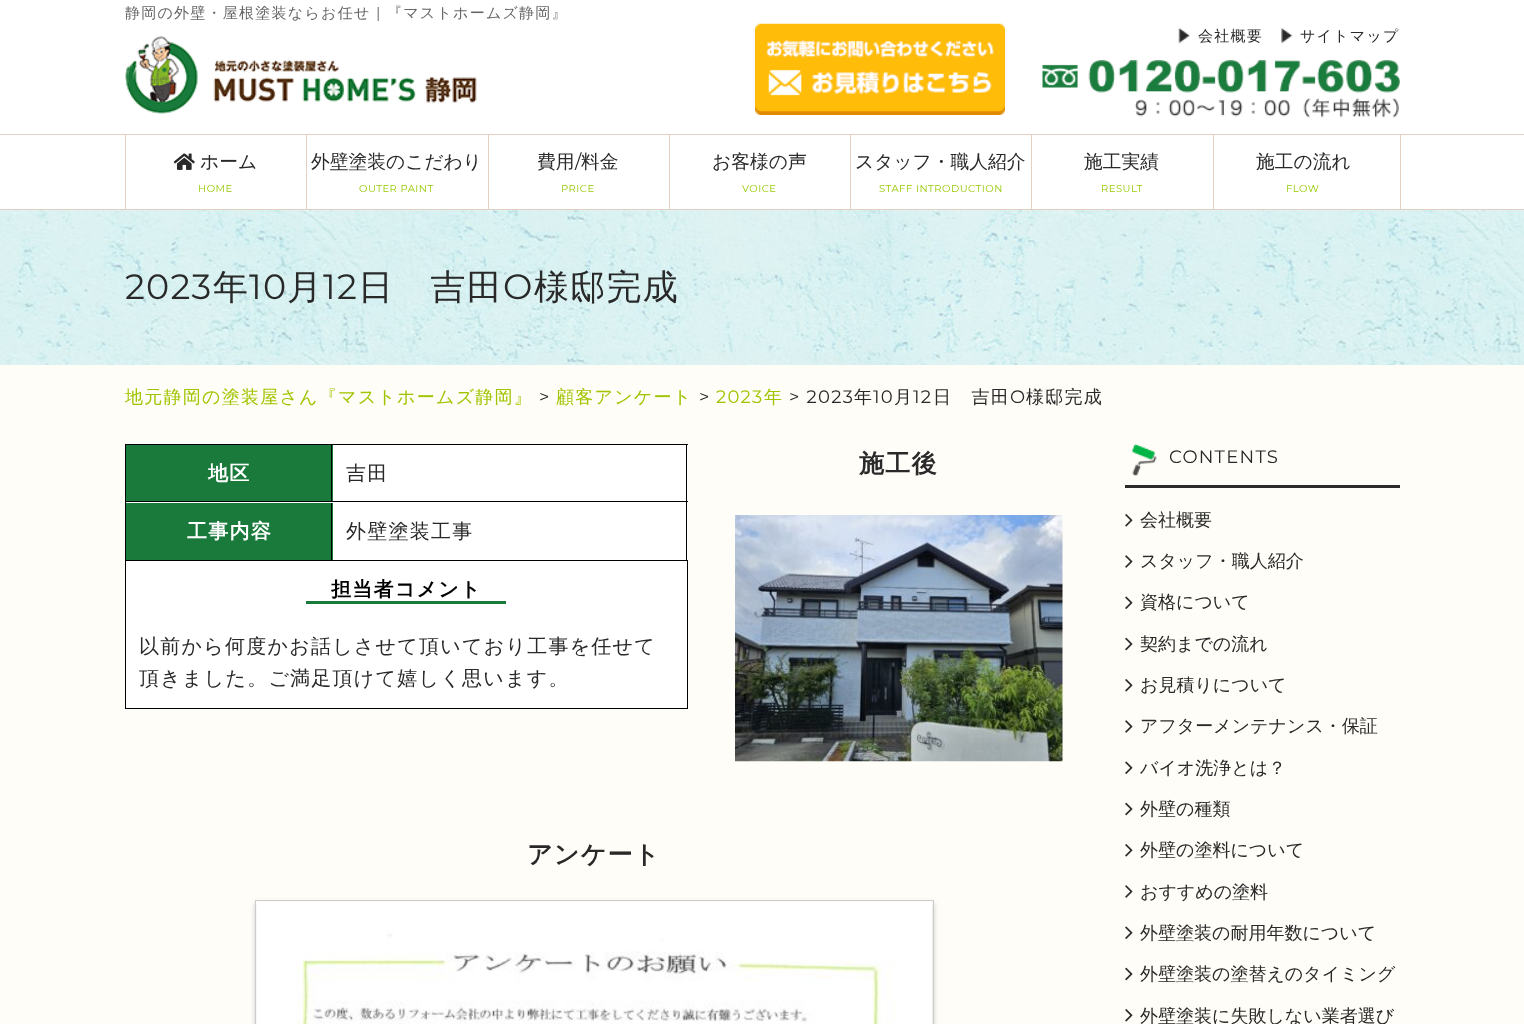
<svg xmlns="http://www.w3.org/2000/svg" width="1524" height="1024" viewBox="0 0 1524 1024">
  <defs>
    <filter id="blur1" x="-50%" y="-200%" width="200%" height="500%"><feGaussianBlur stdDeviation="2.5"/></filter>
  </defs>
  <rect width="100%" height="100%" fill="#fffdf7"/>
  <rect x="0" y="0" width="1524" height="134" fill="#ffffff"/>
  <text x="125" y="18" font-family="WenQuanYi Zen Hei" font-size="15" font-weight="500" letter-spacing="1.25" fill="#676767">静岡の外壁・屋根塗装ならお任せ</text>
  <text x="376" y="18" font-family="Montserrat" font-size="15" letter-spacing="1.25" fill="#676767">|</text>
  <text x="387" y="18" font-family="WenQuanYi Zen Hei" font-size="15" font-weight="500" letter-spacing="1.25" fill="#676767">『マストホームズ静岡』</text>
  <image x="125" y="36" width="352" height="78" href="img1.png"/>
  <image x="755" y="23" width="250" height="92" href="img2.png"/>
  <image x="1178" y="27" width="13" height="17" href="img3.png"/>
  <text x="1198" y="41" font-family="WenQuanYi Zen Hei" font-size="15" font-weight="500" letter-spacing="1.25" fill="#292929">会社概要</text>
  <image x="1281" y="28" width="12" height="16" href="img4.png"/>
  <text x="1300" y="41" font-family="WenQuanYi Zen Hei" font-size="15" font-weight="500" letter-spacing="1.25" fill="#292929">サイトマップ</text>
  <image x="1042" y="60" width="358" height="58" href="img5.png"/>
  <rect x="0" y="135" width="1524" height="74" fill="#ffffff"/>
  <rect x="0" y="134" width="1524" height="1" fill="#e4d0c3"/>
  <rect x="0" y="209" width="1524" height="1" fill="#e4d0c3"/>
  <rect x="1400" y="135" width="1" height="74" fill="#e4d0c3"/>
  <rect x="125" y="135" width="1" height="74" fill="#e4d0c3"/>
  <image x="173" y="153" width="22" height="17" href="img6.png"/>
  <text x="200" y="168" font-family="WenQuanYi Zen Hei" font-size="18.75" font-weight="500" fill="#292929">ホーム</text>
  <text x="198" y="192" font-family="Montserrat" font-size="10" letter-spacing="0.5" fill="#97c900">HOME</text>
  <rect x="306" y="135" width="1" height="74" fill="#e4d0c3"/>
  <text x="311" y="168" font-family="WenQuanYi Zen Hei" font-size="18.75" font-weight="500" fill="#292929">外壁塗装のこだわり</text>
  <text x="359" y="192" font-family="Montserrat" font-size="10" letter-spacing="0.5" fill="#97c900">OUTER PAINT</text>
  <rect x="488" y="135" width="1" height="74" fill="#e4d0c3"/>
  <text x="537" y="168" font-family="WenQuanYi Zen Hei" font-size="18.75" font-weight="500" fill="#292929">費用</text>
  <text x="575" y="168" font-family="Montserrat" font-size="18.75" fill="#292929">/</text>
  <text x="581" y="168" font-family="WenQuanYi Zen Hei" font-size="18.75" font-weight="500" fill="#292929">料金</text>
  <text x="561" y="192" font-family="Montserrat" font-size="10" letter-spacing="0.5" fill="#97c900">PRICE</text>
  <rect x="669" y="135" width="1" height="74" fill="#e4d0c3"/>
  <text x="712" y="168" font-family="WenQuanYi Zen Hei" font-size="18.75" font-weight="500" fill="#292929">お客様の声</text>
  <text x="742" y="192" font-family="Montserrat" font-size="10" letter-spacing="0.5" fill="#97c900">VOICE</text>
  <rect x="850" y="135" width="1" height="74" fill="#e4d0c3"/>
  <text x="855" y="168" font-family="WenQuanYi Zen Hei" font-size="18.75" font-weight="500" fill="#292929">スタッフ・職人紹介</text>
  <text x="879" y="192" font-family="Montserrat" font-size="10" letter-spacing="0.5" fill="#97c900">STAFF INTRODUCTION</text>
  <rect x="1031" y="135" width="1" height="74" fill="#e4d0c3"/>
  <text x="1084" y="168" font-family="WenQuanYi Zen Hei" font-size="18.75" font-weight="500" fill="#292929">施工実績</text>
  <text x="1101" y="192" font-family="Montserrat" font-size="10" letter-spacing="0.5" fill="#97c900">RESULT</text>
  <rect x="1213" y="135" width="1" height="74" fill="#e4d0c3"/>
  <text x="1256" y="168" font-family="WenQuanYi Zen Hei" font-size="18.75" font-weight="500" fill="#292929">施工の流れ</text>
  <text x="1286" y="192" font-family="Montserrat" font-size="10" letter-spacing="0.5" fill="#97c900">FLOW</text>
  <image x="0" y="210" width="1524" height="155" href="img7.png"/>
  <text x="125" y="299" font-family="Montserrat" font-size="35" letter-spacing="1.25" fill="#292929">2023</text>
  <text x="213" y="299" font-family="WenQuanYi Zen Hei" font-size="35" font-weight="500" letter-spacing="1.25" fill="#292929">年</text>
  <text x="249" y="299" font-family="Montserrat" font-size="35" letter-spacing="1.25" fill="#292929">10</text>
  <text x="287" y="299" font-family="WenQuanYi Zen Hei" font-size="35" font-weight="500" letter-spacing="1.25" fill="#292929">月</text>
  <text x="323" y="299" font-family="Montserrat" font-size="35" letter-spacing="1.25" fill="#292929">12</text>
  <text x="358" y="299" font-family="WenQuanYi Zen Hei" font-size="35" font-weight="500" letter-spacing="1.25" fill="#292929">日　吉田</text>
  <text x="503" y="299" font-family="Montserrat" font-size="35" letter-spacing="1.25" fill="#292929">O</text>
  <text x="534" y="299" font-family="WenQuanYi Zen Hei" font-size="35" font-weight="500" letter-spacing="1.25" fill="#292929">様邸完成</text>
  <text x="125" y="403" font-family="WenQuanYi Zen Hei" font-size="18" font-weight="500" letter-spacing="1.25" fill="#a0c400">地元静岡の塗装屋さん『マストホームズ静岡』</text>
  <text x="539" y="403" font-family="Montserrat" font-size="18" letter-spacing="1.25" fill="#292929">&gt;</text>
  <text x="556" y="403" font-family="WenQuanYi Zen Hei" font-size="18" font-weight="500" letter-spacing="1.25" fill="#a0c400">顧客アンケート</text>
  <text x="699" y="403" font-family="Montserrat" font-size="18" letter-spacing="1.25" fill="#292929">&gt;</text>
  <text x="716" y="403" font-family="Montserrat" font-size="18" letter-spacing="1.25" fill="#a0c400">2023</text>
  <text x="764" y="403" font-family="WenQuanYi Zen Hei" font-size="18" font-weight="500" letter-spacing="1.25" fill="#a0c400">年</text>
  <text x="789" y="403" font-family="Montserrat" font-size="18" letter-spacing="1.25" fill="#292929">&gt; 2023</text>
  <text x="854" y="403" font-family="WenQuanYi Zen Hei" font-size="18" font-weight="500" letter-spacing="1.25" fill="#292929">年</text>
  <text x="873" y="403" font-family="Montserrat" font-size="18" letter-spacing="1.25" fill="#292929">10</text>
  <text x="894" y="403" font-family="WenQuanYi Zen Hei" font-size="18" font-weight="500" letter-spacing="1.25" fill="#292929">月</text>
  <text x="913" y="403" font-family="Montserrat" font-size="18" letter-spacing="1.25" fill="#292929">12</text>
  <text x="933" y="403" font-family="WenQuanYi Zen Hei" font-size="18" font-weight="500" letter-spacing="1.25" fill="#292929">日　吉田</text>
  <text x="1010" y="403" font-family="Montserrat" font-size="18" letter-spacing="1.25" fill="#292929">O</text>
  <text x="1026" y="403" font-family="WenQuanYi Zen Hei" font-size="18" font-weight="500" letter-spacing="1.25" fill="#292929">様邸完成</text>
  <rect x="333" y="445" width="355" height="56" fill="#ffffff"/>
  <rect x="125" y="444" width="563" height="1" fill="#000000"/>
  <rect x="686" y="444" width="1" height="57" fill="#000000"/>
  <rect x="125" y="444" width="1" height="57" fill="#000000"/>
  <rect x="126" y="445" width="207" height="56" fill="#197a3b"/>
  <rect x="331" y="445" width="1" height="56" fill="#000000"/>
  <text x="208" y="480" font-family="WenQuanYi Zen Hei" font-size="20" font-weight="bold" letter-spacing="1.25" fill="#ffffff">地区</text>
  <text x="346" y="480" font-family="WenQuanYi Zen Hei" font-size="20" font-weight="500" letter-spacing="1.25" fill="#292929">吉田</text>
  <rect x="126" y="502" width="562" height="58" fill="#ffffff"/>
  <rect x="125" y="501" width="563" height="1" fill="#000000"/>
  <rect x="686" y="501" width="1" height="59" fill="#000000"/>
  <rect x="125" y="501" width="1" height="59" fill="#000000"/>
  <rect x="126" y="503" width="207" height="57" fill="#197a3b"/>
  <rect x="331" y="503" width="1" height="57" fill="#000000"/>
  <text x="187" y="538" font-family="WenQuanYi Zen Hei" font-size="20" font-weight="bold" letter-spacing="1.25" fill="#ffffff">工事内容</text>
  <text x="346" y="538" font-family="WenQuanYi Zen Hei" font-size="20" font-weight="500" letter-spacing="1.25" fill="#292929">外壁塗装工事</text>
  <rect x="125.5" y="560.5" width="562" height="148" fill="#ffffff" stroke="#000000"/>
  <text x="331" y="596" font-family="WenQuanYi Zen Hei" font-size="20" font-weight="bold" letter-spacing="1.25" fill="#000000">担当者コメント</text>
  <rect x="306" y="601" width="200" height="3" fill="#197a3b"/>
  <text x="139" y="653" font-family="WenQuanYi Zen Hei" font-size="20" font-weight="500" letter-spacing="1.25" fill="#292929">以前から何度かお話しさせて頂いており工事を任せて</text>
  <text x="139" y="685" font-family="WenQuanYi Zen Hei" font-size="20" font-weight="500" letter-spacing="1.25" fill="#292929">頂きました。ご満足頂けて嬉しく思います。</text>
  <text x="859" y="472" font-family="WenQuanYi Zen Hei" font-size="25" font-weight="bold" letter-spacing="1.25" fill="#292929">施工後</text>
  <image x="735" y="515" width="328" height="247" href="img8.png"/>
  <text x="527" y="863" font-family="WenQuanYi Zen Hei" font-size="25" font-weight="bold" letter-spacing="1.25" fill="#292929">アンケート</text>
  <rect x="255" y="903" width="679" height="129" fill="#cccccc" filter="url(#blur1)"/>
  <rect x="255.5" y="900.5" width="678" height="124" fill="none" stroke="#cccccc"/>
  <image x="256" y="901" width="677" height="123" href="img9.png"/>
  <image x="1131" y="443" width="26" height="34" href="img10.png"/>
  <rect x="1125" y="485" width="275" height="3" fill="#2b2b2b"/>
  <text x="1169" y="463" font-family="Montserrat" font-size="18" letter-spacing="1.25" fill="#292929">CONTENTS</text>
  <image x="1125" y="514" width="8" height="13" href="img11.png"/>
  <text x="1140" y="526" font-family="WenQuanYi Zen Hei" font-size="18" font-weight="500" fill="#292929">会社概要</text>
  <image x="1125" y="555" width="8" height="13" href="img12.png"/>
  <text x="1140" y="567" font-family="WenQuanYi Zen Hei" font-size="18" font-weight="500" fill="#292929">スタッフ・職人紹介</text>
  <image x="1125" y="596" width="8" height="13" href="img13.png"/>
  <text x="1140" y="608" font-family="WenQuanYi Zen Hei" font-size="18" font-weight="500" fill="#292929">資格について</text>
  <image x="1125" y="637" width="8" height="14" href="img14.png"/>
  <text x="1140" y="650" font-family="WenQuanYi Zen Hei" font-size="18" font-weight="500" fill="#292929">契約までの流れ</text>
  <image x="1125" y="679" width="8" height="13" href="img11.png"/>
  <text x="1140" y="691" font-family="WenQuanYi Zen Hei" font-size="18" font-weight="500" fill="#292929">お見積りについて</text>
  <image x="1125" y="720" width="8" height="13" href="img12.png"/>
  <text x="1140" y="732" font-family="WenQuanYi Zen Hei" font-size="18" font-weight="500" fill="#292929">アフターメンテナンス・保証</text>
  <image x="1125" y="761" width="8" height="13" href="img13.png"/>
  <text x="1140" y="774" font-family="WenQuanYi Zen Hei" font-size="18" font-weight="500" fill="#292929">バイオ洗浄とは？</text>
  <image x="1125" y="802" width="8" height="14" href="img14.png"/>
  <text x="1140" y="815" font-family="WenQuanYi Zen Hei" font-size="18" font-weight="500" fill="#292929">外壁の種類</text>
  <image x="1125" y="844" width="8" height="13" href="img11.png"/>
  <text x="1140" y="856" font-family="WenQuanYi Zen Hei" font-size="18" font-weight="500" fill="#292929">外壁の塗料について</text>
  <image x="1125" y="885" width="8" height="13" href="img12.png"/>
  <text x="1140" y="898" font-family="WenQuanYi Zen Hei" font-size="18" font-weight="500" fill="#292929">おすすめの塗料</text>
  <image x="1125" y="926" width="8" height="13" href="img13.png"/>
  <text x="1140" y="939" font-family="WenQuanYi Zen Hei" font-size="18" font-weight="500" fill="#292929">外壁塗装の耐用年数について</text>
  <image x="1125" y="967" width="8" height="14" href="img14.png"/>
  <text x="1140" y="980" font-family="WenQuanYi Zen Hei" font-size="18" font-weight="500" fill="#292929">外壁塗装の塗替えのタイミング</text>
  <image x="1125" y="1009" width="8" height="13" href="img11.png"/>
  <text x="1140" y="1022" font-family="WenQuanYi Zen Hei" font-size="18" font-weight="500" fill="#292929">外壁塗装に失敗しない業者選び</text>
</svg>
